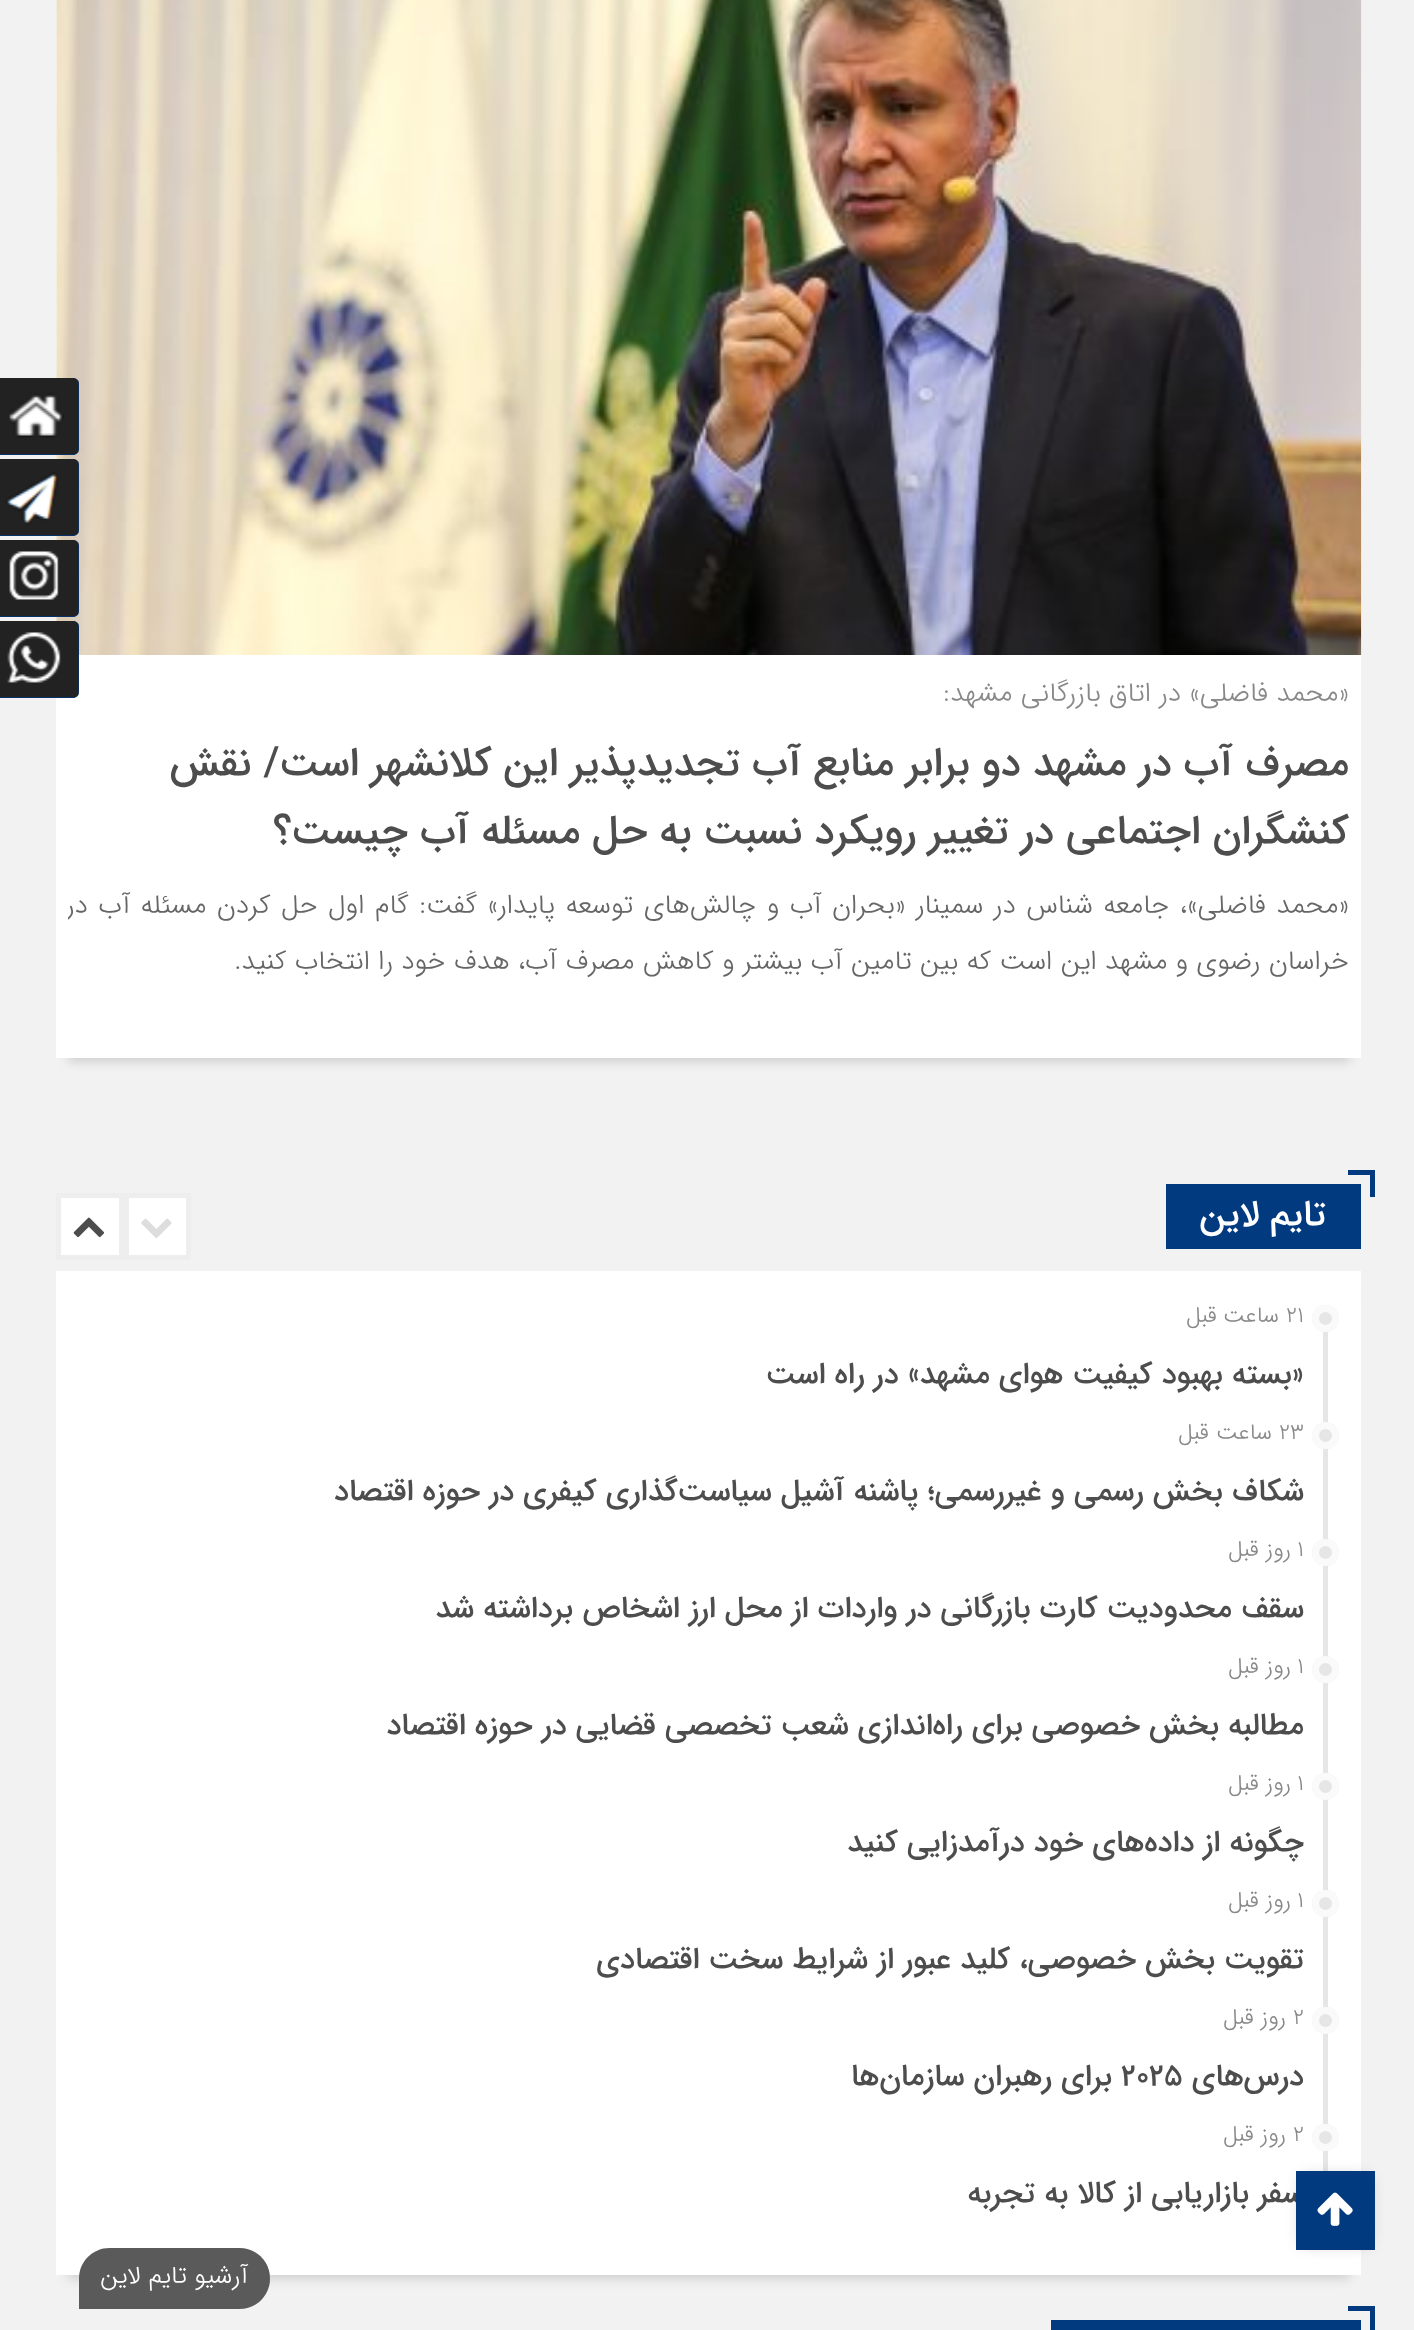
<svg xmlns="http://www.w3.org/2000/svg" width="1414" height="2330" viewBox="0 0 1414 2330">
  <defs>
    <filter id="blur1" x="-50%" y="-200%" width="200%" height="500%"><feGaussianBlur stdDeviation="5.5"/></filter>
    <clipPath id="clip1"><rect x="68" y="878" width="1282" height="168"/></clipPath>
    <filter id="blur2" x="-50%" y="-200%" width="200%" height="500%"><feGaussianBlur stdDeviation="8"/></filter>
  </defs>
  <rect width="100%" height="100%" fill="#f2f2f2"/>
  <rect x="68" y="-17" width="1282" height="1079" fill="#cfcfcf" filter="url(#blur1)"/>
  <rect x="56" y="0" width="1" height="621" fill="#fafafa"/>
  <image x="56" y="0" width="1306" height="655" href="img5.png"/>
  <path d="M-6 378H73C76.5 378 79 380.5 79 384V449C79 452.5 76.5 455 73 455H-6Z" fill="#023a80"/>
  <image x="0" y="378" width="79" height="77" href="img1.png"/>
  <path d="M-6 459H73C76.5 459 79 461.5 79 465V530C79 533.5 76.5 536 73 536H-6Z" fill="#023a80"/>
  <image x="0" y="459" width="79" height="77" href="img2.png"/>
  <path d="M-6 540H73C76.5 540 79 542.5 79 546V611C79 614.5 76.5 617 73 617H-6Z" fill="#023a80"/>
  <image x="0" y="540" width="79" height="77" href="img3.png"/>
  <rect x="56" y="655" width="1305" height="403" fill="#ffffff"/>
  <path d="M-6 621H73C76.5 621 79 623.5 79 627V692C79 695.5 76.5 698 73 698H-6Z" fill="#023a80"/>
  <image x="0" y="621" width="79" height="77" href="img4.png"/>
  <text x="1349" y="701" font-family="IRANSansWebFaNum" font-size="27" font-weight="300" direction="rtl" fill="#888888">«محمد فاضلی» در اتاق بازرگانی مشهد:</text>
  <text x="1349" y="775" font-family="IRANSansWebFaNum" font-size="40.5" font-weight="500" direction="rtl" fill="#4d4d4d">مصرف آب در مشهد دو برابر منابع آب تجدیدپذیر این کلانشهر است/ نقش</text>
  <text x="1349" y="843" font-family="IRANSansWebFaNum" font-size="40.5" font-weight="500" direction="rtl" fill="#4d4d4d">کنشگران اجتماعی در تغییر رویکرد نسبت به حل مسئله آب چیست؟</text>
  <g clip-path="url(#clip1)">
    <text x="1349" y="913" word-spacing="2.25" font-family="IRANSansWebFaNum" font-size="27" font-weight="300" direction="rtl" fill="#666666">«محمد فاضلی»، جامعه شناس در سمینار «بحران آب و چالش‌های توسعه پایدار» گفت: گام اول حل کردن مسئله آب در</text>
  </g>
  <text x="1349" y="969" font-family="IRANSansWebFaNum" font-size="27" font-weight="300" direction="rtl" fill="#666666">خراسان رضوی و مشهد این است که بین تامین آب بیشتر و کاهش مصرف آب، هدف خود را انتخاب کنید.</text>
  <rect x="1166" y="1184" width="195" height="65" fill="#023a80"/>
  <rect x="1348" y="1170" width="27" height="5" fill="#023a80"/>
  <rect x="1370" y="1170" width="5" height="27" fill="#023a80"/>
  <text x="1326" y="1225" font-family="IRANSansWebFaNum" font-size="36" font-weight="500" direction="rtl" fill="#ffffff">تایم لاین</text>
  <rect x="68" y="1298" width="1282" height="981" fill="#cfcfcf" filter="url(#blur1)"/>
  <rect x="56" y="1271" width="1305" height="1004" fill="#ffffff"/>
  <rect x="126.5" y="1195.5" width="62" height="62" fill="#ffffff" stroke="#eeeeee" stroke-width="5"/>
  <image x="141" y="1218" width="31" height="20" href="img6.png"/>
  <rect x="58.5" y="1195.5" width="63" height="62" fill="#ffffff" stroke="#eeeeee" stroke-width="5"/>
  <image x="73" y="1217" width="31" height="21" href="img7.png"/>
  <rect x="1323" y="1305" width="5" height="866" fill="#e6e6e6"/>
  <circle cx="1325.5" cy="1318.5" r="13.5" fill="#e6e6e6"/>
  <circle cx="1325.5" cy="1318.5" r="10" fill="none" stroke="#ffffff" stroke-opacity="0.8" stroke-width="7"/>
  <text x="1286" y="1322" font-family="IRANSansWebFaNum" font-size="22.5" font-weight="300" fill="#888888">21</text>
  <text x="1279" y="1322" font-family="IRANSansWebFaNum" font-size="22.5" font-weight="300" direction="rtl" fill="#888888">ساعت</text>
  <text x="1217" y="1322" font-family="IRANSansWebFaNum" font-size="22.5" font-weight="300" direction="rtl" fill="#888888">قبل</text>
  <text x="1304" y="1383" font-family="IRANSansWebFaNum" font-size="30.4" font-weight="500" direction="rtl" fill="#4d4d4d">«بسته بهبود کیفیت هوای مشهد» در راه است</text>
  <circle cx="1325.5" cy="1435.5" r="13.5" fill="#e6e6e6"/>
  <circle cx="1325.5" cy="1435.5" r="10" fill="none" stroke="#ffffff" stroke-opacity="0.8" stroke-width="7"/>
  <text x="1279" y="1439" font-family="IRANSansWebFaNum" font-size="22.5" font-weight="300" fill="#888888">23</text>
  <text x="1272" y="1439" font-family="IRANSansWebFaNum" font-size="22.5" font-weight="300" direction="rtl" fill="#888888">ساعت</text>
  <text x="1209" y="1439" font-family="IRANSansWebFaNum" font-size="22.5" font-weight="300" direction="rtl" fill="#888888">قبل</text>
  <text x="1304" y="1500" font-family="IRANSansWebFaNum" font-size="30.4" font-weight="500" direction="rtl" fill="#4d4d4d">شکاف بخش رسمی و غیررسمی؛ پاشنه آشیل سیاست‌گذاری کیفری در حوزه اقتصاد</text>
  <circle cx="1325.5" cy="1552.5" r="13.5" fill="#e6e6e6"/>
  <circle cx="1325.5" cy="1552.5" r="10" fill="none" stroke="#ffffff" stroke-opacity="0.8" stroke-width="7"/>
  <text x="1297" y="1556" font-family="IRANSansWebFaNum" font-size="22.5" font-weight="300" fill="#888888">1</text>
  <text x="1291" y="1556" font-family="IRANSansWebFaNum" font-size="22.5" font-weight="300" direction="rtl" fill="#888888">روز</text>
  <text x="1259" y="1556" font-family="IRANSansWebFaNum" font-size="22.5" font-weight="300" direction="rtl" fill="#888888">قبل</text>
  <text x="1304" y="1617" font-family="IRANSansWebFaNum" font-size="30.4" font-weight="500" direction="rtl" fill="#4d4d4d">سقف محدودیت کارت بازرگانی در واردات از محل ارز اشخاص برداشته شد</text>
  <circle cx="1325.5" cy="1669.5" r="13.5" fill="#e6e6e6"/>
  <circle cx="1325.5" cy="1669.5" r="10" fill="none" stroke="#ffffff" stroke-opacity="0.8" stroke-width="7"/>
  <text x="1297" y="1673" font-family="IRANSansWebFaNum" font-size="22.5" font-weight="300" fill="#888888">1</text>
  <text x="1291" y="1673" font-family="IRANSansWebFaNum" font-size="22.5" font-weight="300" direction="rtl" fill="#888888">روز</text>
  <text x="1259" y="1673" font-family="IRANSansWebFaNum" font-size="22.5" font-weight="300" direction="rtl" fill="#888888">قبل</text>
  <text x="1304" y="1734" font-family="IRANSansWebFaNum" font-size="30.4" font-weight="500" direction="rtl" fill="#4d4d4d">مطالبه بخش خصوصی برای راه‌اندازی شعب تخصصی قضایی در حوزه اقتصاد</text>
  <circle cx="1325.5" cy="1786.5" r="13.5" fill="#e6e6e6"/>
  <circle cx="1325.5" cy="1786.5" r="10" fill="none" stroke="#ffffff" stroke-opacity="0.8" stroke-width="7"/>
  <text x="1297" y="1790" font-family="IRANSansWebFaNum" font-size="22.5" font-weight="300" fill="#888888">1</text>
  <text x="1291" y="1790" font-family="IRANSansWebFaNum" font-size="22.5" font-weight="300" direction="rtl" fill="#888888">روز</text>
  <text x="1259" y="1790" font-family="IRANSansWebFaNum" font-size="22.5" font-weight="300" direction="rtl" fill="#888888">قبل</text>
  <text x="1304" y="1851" font-family="IRANSansWebFaNum" font-size="30.4" font-weight="500" direction="rtl" fill="#4d4d4d">چگونه از داده‌های خود درآمدزایی کنید</text>
  <circle cx="1325.5" cy="1903.5" r="13.5" fill="#e6e6e6"/>
  <circle cx="1325.5" cy="1903.5" r="10" fill="none" stroke="#ffffff" stroke-opacity="0.8" stroke-width="7"/>
  <text x="1297" y="1907" font-family="IRANSansWebFaNum" font-size="22.5" font-weight="300" fill="#888888">1</text>
  <text x="1291" y="1907" font-family="IRANSansWebFaNum" font-size="22.5" font-weight="300" direction="rtl" fill="#888888">روز</text>
  <text x="1259" y="1907" font-family="IRANSansWebFaNum" font-size="22.5" font-weight="300" direction="rtl" fill="#888888">قبل</text>
  <text x="1304" y="1968" font-family="IRANSansWebFaNum" font-size="30.4" font-weight="500" direction="rtl" fill="#4d4d4d">تقویت بخش خصوصی، کلید عبور از شرایط سخت اقتصادی</text>
  <circle cx="1325.5" cy="2020.5" r="13.5" fill="#e6e6e6"/>
  <circle cx="1325.5" cy="2020.5" r="10" fill="none" stroke="#ffffff" stroke-opacity="0.8" stroke-width="7"/>
  <text x="1293" y="2024" font-family="IRANSansWebFaNum" font-size="22.5" font-weight="300" fill="#888888">2</text>
  <text x="1286" y="2024" font-family="IRANSansWebFaNum" font-size="22.5" font-weight="300" direction="rtl" fill="#888888">روز</text>
  <text x="1254" y="2024" font-family="IRANSansWebFaNum" font-size="22.5" font-weight="300" direction="rtl" fill="#888888">قبل</text>
  <text x="1304" y="2085" font-family="IRANSansWebFaNum" font-size="30.4" font-weight="500" direction="rtl" fill="#4d4d4d">درس‌های</text>
  <text x="1121" y="2085" font-family="IRANSansWebFaNum" font-size="30.4" font-weight="500" fill="#4d4d4d">۲۰۲۵</text>
  <text x="1112" y="2085" font-family="IRANSansWebFaNum" font-size="30.4" font-weight="500" direction="rtl" fill="#4d4d4d">برای رهبران سازمان‌ها</text>
  <circle cx="1325.5" cy="2137.5" r="13.5" fill="#e6e6e6"/>
  <circle cx="1325.5" cy="2137.5" r="10" fill="none" stroke="#ffffff" stroke-opacity="0.8" stroke-width="7"/>
  <text x="1293" y="2141" font-family="IRANSansWebFaNum" font-size="22.5" font-weight="300" fill="#888888">2</text>
  <text x="1286" y="2141" font-family="IRANSansWebFaNum" font-size="22.5" font-weight="300" direction="rtl" fill="#888888">روز</text>
  <text x="1254" y="2141" font-family="IRANSansWebFaNum" font-size="22.5" font-weight="300" direction="rtl" fill="#888888">قبل</text>
  <text x="1304" y="2202" font-family="IRANSansWebFaNum" font-size="30.4" font-weight="500" direction="rtl" fill="#4d4d4d">سفر بازاریابی از کالا به تجربه</text>
  <path d="M109.5 2248H239.5C256.5 2248 270 2261.5 270 2278.5C270 2295.5 256.5 2309 239.5 2309H79V2278.5C79 2261.5 92.5 2248 109.5 2248Z" fill="#5a5a5a"/>
  <text x="248" y="2283" font-family="IRANSansWebFaNum" font-size="24.75" font-weight="300" direction="rtl" fill="#ffffff">آرشیو تایم لاین</text>
  <rect x="1051" y="2320" width="310" height="10" fill="#023a80"/>
  <rect x="1348" y="2306" width="27" height="5" fill="#023a80"/>
  <rect x="1370" y="2306" width="5" height="24" fill="#023a80"/>
  <rect x="1303" y="2178" width="65" height="65" fill="#000000" fill-opacity="0.3" filter="url(#blur2)"/>
  <rect x="1296" y="2171" width="79" height="79" fill="#023a80"/>
  <image x="1317" y="2192" width="36" height="34" href="img8.png"/>
</svg>
